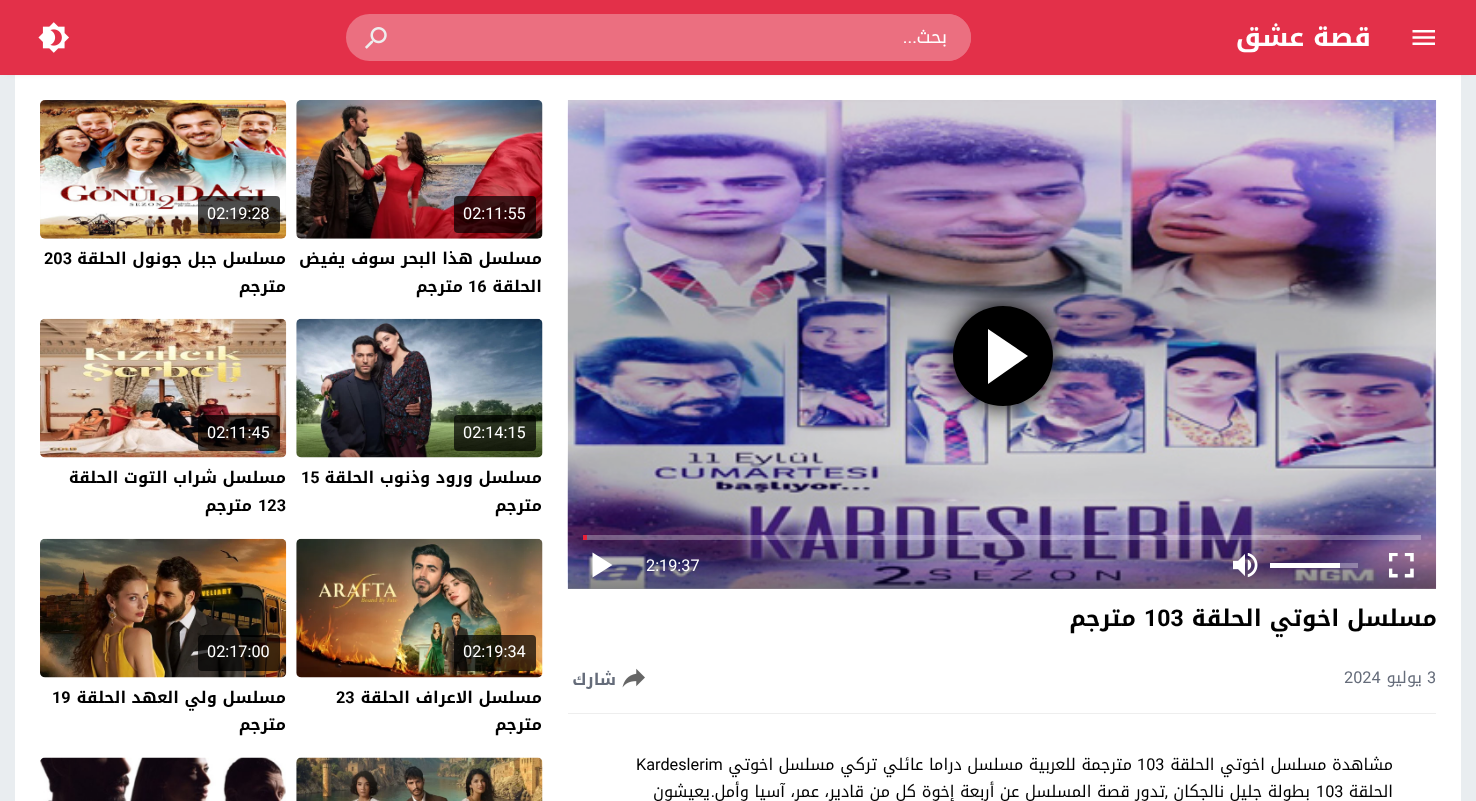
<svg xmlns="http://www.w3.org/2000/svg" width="1476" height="801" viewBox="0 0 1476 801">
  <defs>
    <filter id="blur1" x="-50%" y="-200%" width="200%" height="500%"><feGaussianBlur stdDeviation="3"/></filter>
    <filter id="blur2" x="-50%" y="-200%" width="200%" height="500%"><feGaussianBlur stdDeviation="12.5"/></filter>
    <linearGradient id="g1" gradientUnits="userSpaceOnUse" x1="1002" y1="535" x2="1002" y2="590"><stop offset="0" stop-color="#000000" stop-opacity="0"/><stop offset="1" stop-color="#000000" stop-opacity="0.4"/></linearGradient>
  </defs>
  <rect width="100%" height="100%" fill="#e9edf0"/>
  <rect x="15" y="75" width="1446" height="726" fill="#ffffff"/>
  <rect x="6" y="9" width="1464" height="62" fill="#999999" filter="url(#blur1)"/>
  <rect x="0" y="0" width="1476" height="75" fill="#e33049"/>
  <image x="1412" y="30" width="23" height="15" href="img1.png"/>
  <text x="1371" y="46" font-family="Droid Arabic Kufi" font-size="26.25" font-weight="bold" direction="rtl" fill="#ffffff">قصة عشق</text>
  <rect x="346" y="14" width="625" height="47" rx="23.5" fill="#eb6f80"/>
  <path d="M409 14H947.5C960.5 14 971 24.5 971 37.5C971 50.5 960.5 61 947.5 61H409Z" fill="#eb6f80"/>
  <text x="947" y="43" font-family="Droid Arabic Kufi" font-size="18" direction="rtl" fill="#ffffff">بحث</text>
  <text x="917" y="43" font-family="Roboto" font-size="18" direction="rtl" fill="#ffffff">...</text>
  <image x="365" y="27" width="22" height="22" href="img2.png"/>
  <image x="38" y="22" width="31" height="31" href="img3.png"/>
  <image x="567" y="100" width="870" height="489" href="img4.png"/>
  <rect x="953" y="306" width="100" height="100" rx="50" fill="#000000" filter="url(#blur2)"/>
  <circle cx="1003" cy="356" r="50" fill="#000000"/>
  <path d="M988 384V329L1028 356Z" fill="#ffffff"/>
  <rect x="568" y="538" width="868" height="51" fill="url(#g1)"/>
  <rect x="583" y="535" width="838" height="5" fill="#ffffff" fill-opacity="0.3"/>
  <rect x="583" y="535" width="4" height="5" fill="#e82239"/>
  <image x="1389" y="553" width="25" height="25" href="img5.png"/>
  <rect x="1340" y="563" width="18" height="5" fill="#ffffff" fill-opacity="0.3"/>
  <rect x="1270" y="563" width="70" height="5" fill="#ffffff"/>
  <image x="1233" y="553" width="25" height="25" href="img6.png"/>
  <text x="646" y="571" font-family="Roboto" font-size="16.25" fill="#ffffff">2:19:37</text>
  <path d="M592.5 552.5V577.5L612.5 565Z" fill="#ffffff"/>
  <text x="1437" y="626" font-family="Droid Arabic Kufi" font-size="23" font-weight="bold" direction="rtl" fill="#000000">مسلسل اخوتي الحلقة</text>
  <text x="1144" y="626" font-family="Roboto" font-size="23" font-weight="bold" fill="#000000">103</text>
  <text x="1136" y="626" font-family="Droid Arabic Kufi" font-size="23" font-weight="bold" direction="rtl" fill="#000000">مترجم</text>
  <rect x="568" y="713" width="868" height="1" fill="#eeeeee"/>
  <text x="1427" y="683" font-family="Roboto" font-size="16.25" fill="#656c7a">3</text>
  <text x="1422" y="683" font-family="Droid Arabic Kufi" font-size="16.25" direction="rtl" fill="#656c7a">يوليو</text>
  <text x="1344" y="683" font-family="Roboto" font-size="16.25" fill="#656c7a">2024</text>
  <image x="622" y="668" width="23" height="20" href="img7.png"/>
  <text x="616" y="685" font-family="Droid Arabic Kufi" font-size="16.25" font-weight="bold" direction="rtl" fill="#656c7a">شارك</text>
  <text x="1393" y="770" font-family="Droid Arabic Kufi" font-size="16.25" direction="rtl" fill="#000000">مشاهدة مسلسل اخوتي الحلقة</text>
  <text x="1137" y="770" font-family="Roboto" font-size="16.25" fill="#000000">103</text>
  <text x="1132" y="770" font-family="Droid Arabic Kufi" font-size="16.25" direction="rtl" fill="#000000">مترجمة للعربية مسلسل دراما عائلي تركي مسلسل اخوتي</text>
  <text x="636" y="770" font-family="Roboto" font-size="16.25" fill="#000000">Kardeslerim</text>
  <text x="1393" y="797" font-family="Droid Arabic Kufi" font-size="16.25" direction="rtl" fill="#000000">الحلقة</text>
  <text x="1316" y="797" font-family="Roboto" font-size="16.25" fill="#000000">103</text>
  <text x="1310" y="797" font-family="Droid Arabic Kufi" font-size="16.25" direction="rtl" fill="#000000">بطولة جليل نالجكان</text>
  <text x="1168" y="797" font-family="Roboto" font-size="16.25" direction="rtl" fill="#000000">,</text>
  <text x="1165" y="797" font-family="Droid Arabic Kufi" font-size="16.25" direction="rtl" fill="#000000">تدور قصة المسلسل عن أربعة إخوة كل من قادير، عمر، آسيا وأمل</text>
  <text x="715" y="797" font-family="Roboto" font-size="16.25" direction="rtl" fill="#000000">.</text>
  <text x="710" y="797" font-family="Droid Arabic Kufi" font-size="16.25" direction="rtl" fill="#000000">يعيشون</text>
  <image x="296" y="100" width="247" height="139" href="img8.png"/>
  <rect x="454" y="196" width="82" height="37" rx="4" fill="#000000" fill-opacity="0.7"/>
  <text x="463" y="219" font-family="Roboto" font-size="16.25" fill="#ffffff">02:11:55</text>
  <text x="542" y="264" font-family="Droid Arabic Kufi" font-size="16.25" font-weight="bold" direction="rtl" fill="#000000">مسلسل هذا البحر سوف يفيض</text>
  <text x="542" y="292" font-family="Droid Arabic Kufi" font-size="16.25" font-weight="bold" direction="rtl" fill="#000000">الحلقة</text>
  <text x="468" y="292" font-family="Roboto" font-size="16.25" font-weight="bold" fill="#000000">16</text>
  <text x="463" y="292" font-family="Droid Arabic Kufi" font-size="16.25" font-weight="bold" direction="rtl" fill="#000000">مترجم</text>
  <image x="40" y="100" width="247" height="139" href="img9.png"/>
  <rect x="198" y="196" width="82" height="37" rx="4" fill="#000000" fill-opacity="0.7"/>
  <text x="207" y="219" font-family="Roboto" font-size="16.25" fill="#ffffff">02:19:28</text>
  <text x="286" y="264" font-family="Droid Arabic Kufi" font-size="16.25" font-weight="bold" direction="rtl" fill="#000000">مسلسل جبل جونول الحلقة</text>
  <text x="44" y="264" font-family="Roboto" font-size="16.25" font-weight="bold" fill="#000000">203</text>
  <text x="286" y="292" font-family="Droid Arabic Kufi" font-size="16.25" font-weight="bold" direction="rtl" fill="#000000">مترجم</text>
  <image x="296" y="318" width="247" height="140" href="img10.png"/>
  <rect x="454" y="415" width="82" height="36" rx="4" fill="#000000" fill-opacity="0.7"/>
  <text x="463" y="438" font-family="Roboto" font-size="16.25" fill="#ffffff">02:14:15</text>
  <text x="542" y="483" font-family="Droid Arabic Kufi" font-size="16.25" font-weight="bold" direction="rtl" fill="#000000">مسلسل ورود وذنوب الحلقة</text>
  <text x="301" y="483" font-family="Roboto" font-size="16.25" font-weight="bold" fill="#000000">15</text>
  <text x="542" y="511" font-family="Droid Arabic Kufi" font-size="16.25" font-weight="bold" direction="rtl" fill="#000000">مترجم</text>
  <image x="40" y="318" width="247" height="140" href="img11.png"/>
  <rect x="198" y="415" width="82" height="36" rx="4" fill="#000000" fill-opacity="0.7"/>
  <text x="207" y="438" font-family="Roboto" font-size="16.25" fill="#ffffff">02:11:45</text>
  <text x="286" y="483" font-family="Droid Arabic Kufi" font-size="16.25" font-weight="bold" direction="rtl" fill="#000000">مسلسل شراب التوت الحلقة</text>
  <text x="258" y="511" font-family="Roboto" font-size="16.25" font-weight="bold" fill="#000000">123</text>
  <text x="252" y="511" font-family="Droid Arabic Kufi" font-size="16.25" font-weight="bold" direction="rtl" fill="#000000">مترجم</text>
  <image x="296" y="538" width="247" height="140" href="img12.png"/>
  <rect x="454" y="635" width="82" height="36" rx="4" fill="#000000" fill-opacity="0.7"/>
  <text x="463" y="657" font-family="Roboto" font-size="16.25" fill="#ffffff">02:19:34</text>
  <text x="542" y="703" font-family="Droid Arabic Kufi" font-size="16.25" font-weight="bold" direction="rtl" fill="#000000">مسلسل الاعراف الحلقة</text>
  <text x="336" y="703" font-family="Roboto" font-size="16.25" font-weight="bold" fill="#000000">23</text>
  <text x="542" y="730" font-family="Droid Arabic Kufi" font-size="16.25" font-weight="bold" direction="rtl" fill="#000000">مترجم</text>
  <image x="40" y="538" width="247" height="140" href="img13.png"/>
  <rect x="198" y="635" width="82" height="36" rx="4" fill="#000000" fill-opacity="0.7"/>
  <text x="207" y="657" font-family="Roboto" font-size="16.25" fill="#ffffff">02:17:00</text>
  <text x="286" y="703" font-family="Droid Arabic Kufi" font-size="16.25" font-weight="bold" direction="rtl" fill="#000000">مسلسل ولي العهد الحلقة</text>
  <text x="52" y="703" font-family="Roboto" font-size="16.25" font-weight="bold" fill="#000000">19</text>
  <text x="286" y="730" font-family="Droid Arabic Kufi" font-size="16.25" font-weight="bold" direction="rtl" fill="#000000">مترجم</text>
  <image x="296" y="757" width="247" height="44" href="img14.png"/>
  <image x="40" y="757" width="246" height="44" href="img15.png"/>
</svg>
